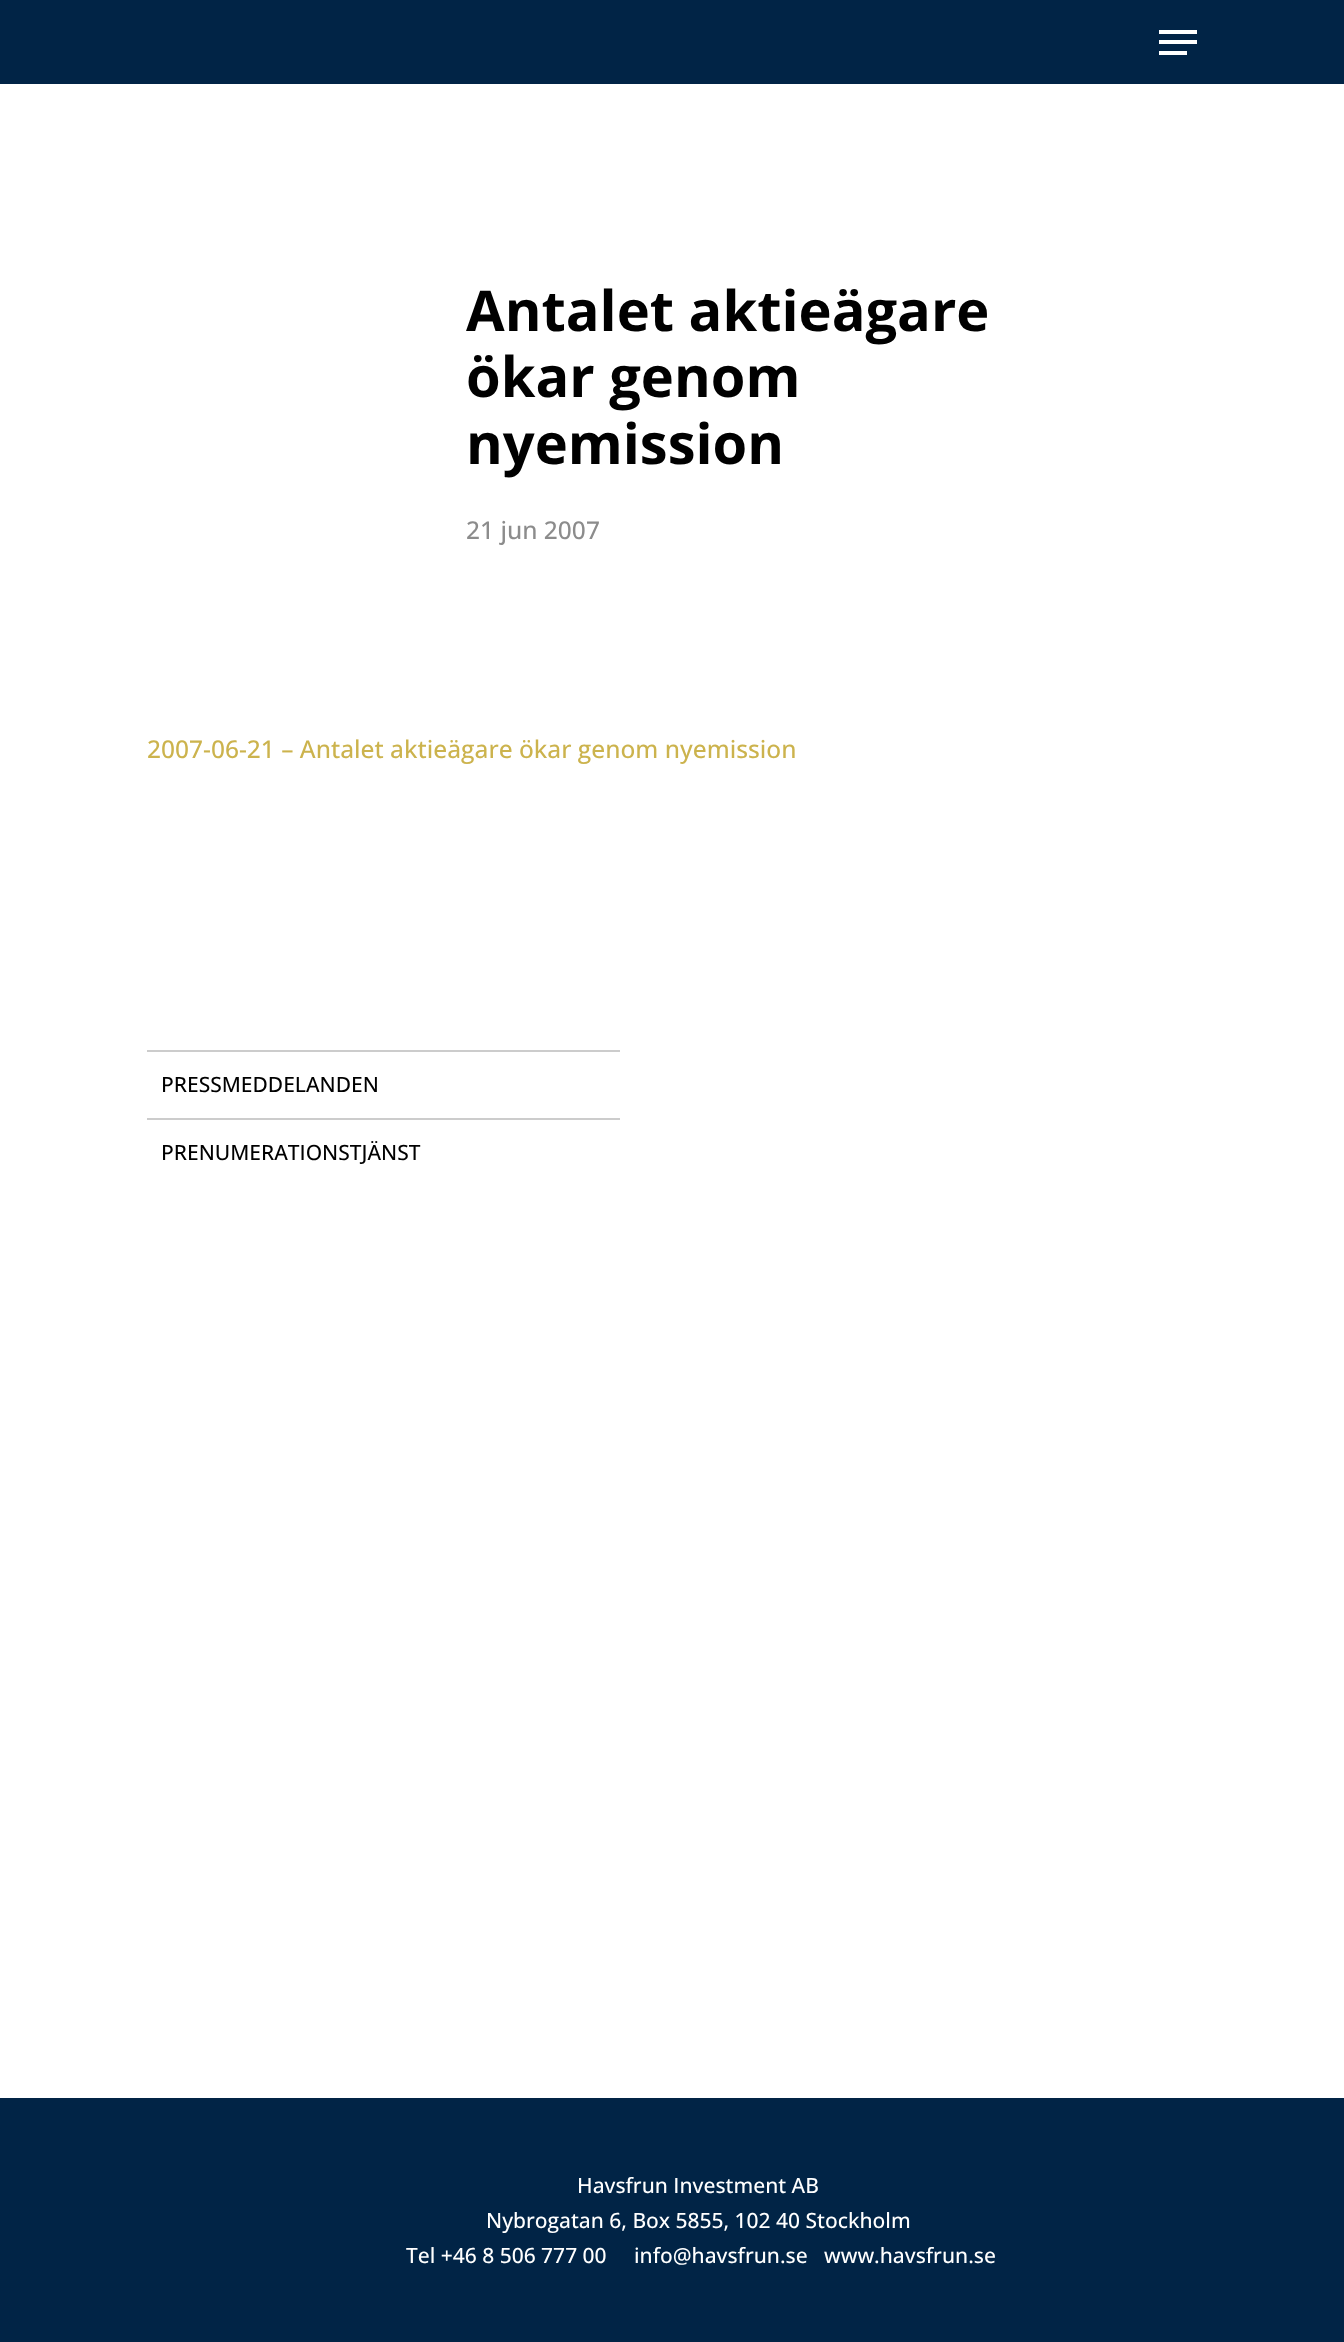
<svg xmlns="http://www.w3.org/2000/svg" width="1344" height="2342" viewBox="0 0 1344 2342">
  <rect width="100%" height="100%" fill="#ffffff"/>
  <rect x="0" y="0" width="1344" height="84" fill="#012446"/>
  <rect x="1159" y="30" width="38" height="4" fill="#ffffff"/>
  <rect x="1159" y="51" width="28" height="4" fill="#ffffff"/>
  <rect x="1159" y="40" width="38" height="4" fill="#ffffff"/>
  <text x="466" y="331" font-family="Open Sans" font-size="56" font-weight="bold" fill="#000000">Antalet aktieägare</text>
  <text x="466" y="397" font-family="Open Sans" font-size="56" font-weight="bold" fill="#000000">ökar genom</text>
  <text x="466" y="464" font-family="Open Sans" font-size="56" font-weight="bold" fill="#000000">nyemission</text>
  <text x="466" y="539" font-family="Open Sans" font-size="24.5" font-weight="500" fill="#8c8c8c">21 jun 2007</text>
  <text x="147" y="758" font-family="Open Sans" font-size="24.5" font-weight="500" fill="#ccb34d">2007-06-21 – Antalet aktieägare ökar genom nyemission</text>
  <rect x="147" y="1050" width="473" height="2" fill="#cccccc"/>
  <text x="161" y="1092" font-family="Open Sans" font-size="21" font-weight="500" fill="#000000">PRESSMEDDELANDEN</text>
  <rect x="147" y="1118" width="473" height="2" fill="#cccccc"/>
  <text x="161" y="1160" font-family="Open Sans" font-size="21" font-weight="500" fill="#000000">PRENUMERATIONSTJÄNST</text>
  <rect x="0" y="2098" width="1344" height="244" fill="#012446"/>
  <text x="577" y="2193" font-family="Open Sans" font-size="21" font-weight="500" fill="#ffffff">Havsfrun Investment AB</text>
  <text x="486" y="2228" font-family="Open Sans" font-size="21" font-weight="500" fill="#ffffff">Nybrogatan 6, Box 5855, 102 40 Stockholm</text>
  <text x="406" y="2263" font-family="Open Sans" font-size="21" font-weight="500" fill="#ffffff">Tel +46 8 506 777 00</text>
  <text x="634" y="2263" font-family="Open Sans" font-size="21" font-weight="500" fill="#ffffff">info@havsfrun.se</text>
  <text x="824" y="2263" font-family="Open Sans" font-size="21" font-weight="500" fill="#ffffff">www.havsfrun.se</text>
</svg>
